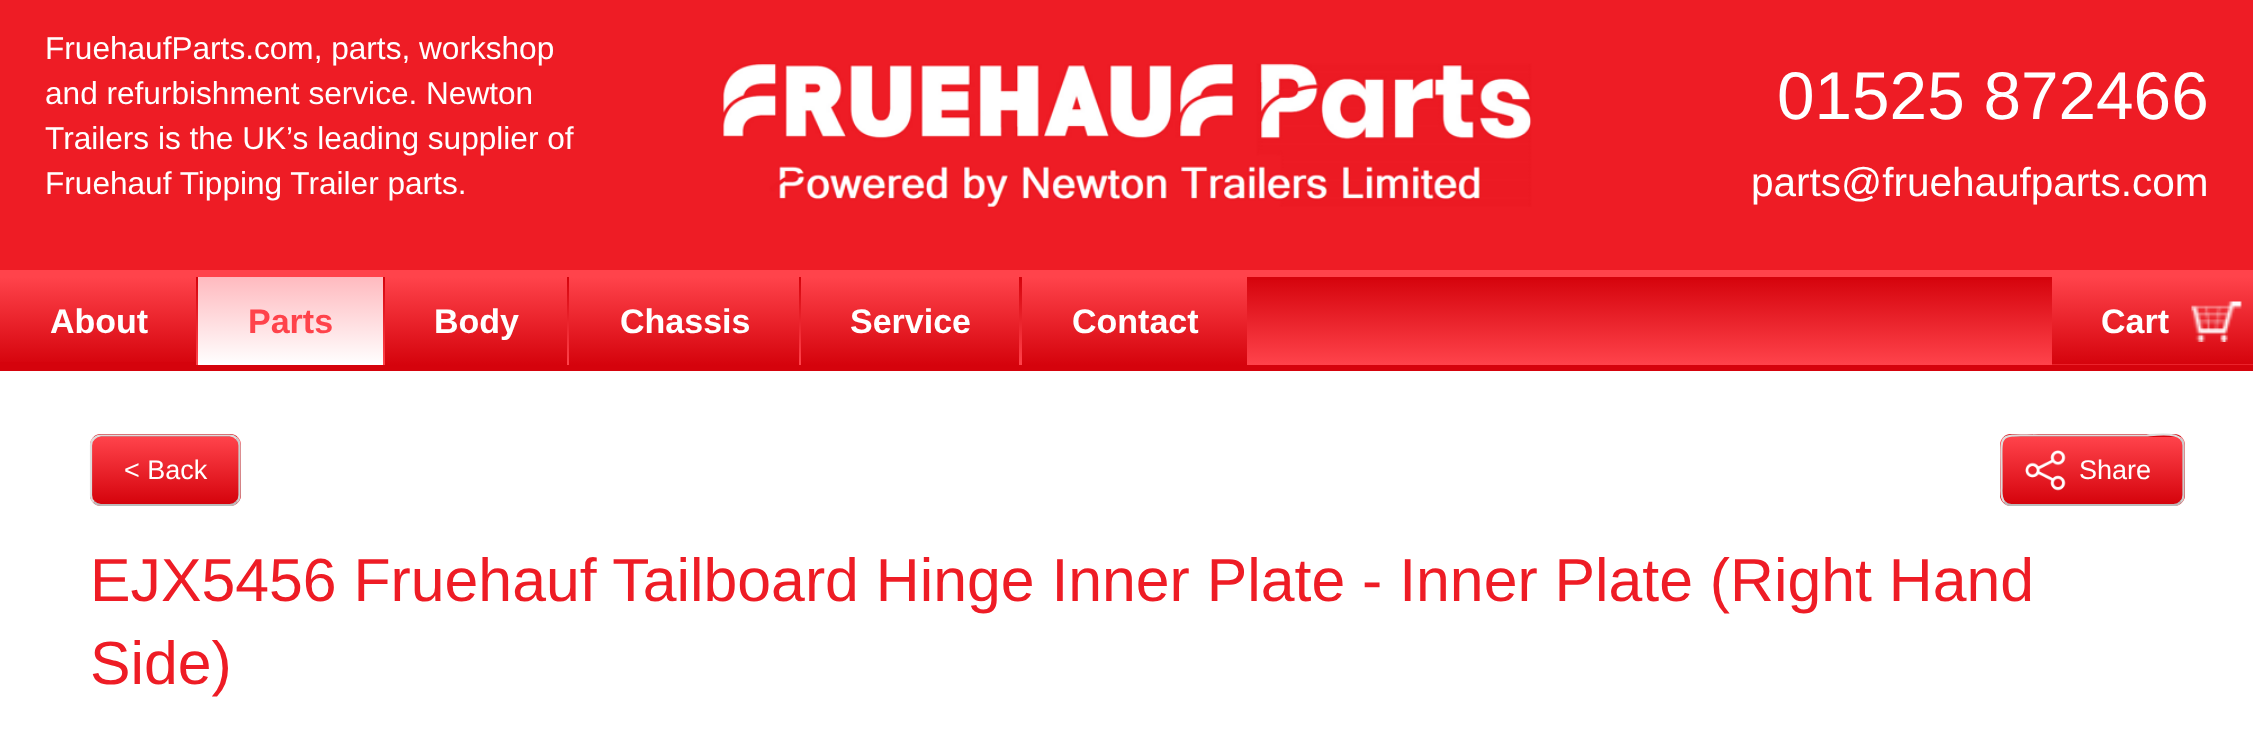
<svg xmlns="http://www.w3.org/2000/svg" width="2253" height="741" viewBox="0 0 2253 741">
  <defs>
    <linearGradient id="g1" gradientUnits="userSpaceOnUse" x1="1127" y1="277" x2="1127" y2="365"><stop offset="0" stop-color="#d5030c"/><stop offset="1" stop-color="#ff434b"/></linearGradient>
    <linearGradient id="g2" gradientUnits="userSpaceOnUse" x1="98" y1="277" x2="98" y2="365"><stop offset="0" stop-color="#ff434b"/><stop offset="1" stop-color="#d5030c"/></linearGradient>
    <linearGradient id="g3" gradientUnits="userSpaceOnUse" x1="290" y1="277" x2="290" y2="365"><stop offset="0" stop-color="#ffbabf"/><stop offset="1" stop-color="#ffffff"/></linearGradient>
    <linearGradient id="g4" gradientUnits="userSpaceOnUse" x1="476" y1="277" x2="476" y2="365"><stop offset="0" stop-color="#ff434b"/><stop offset="1" stop-color="#d5030c"/></linearGradient>
    <linearGradient id="g5" gradientUnits="userSpaceOnUse" x1="684" y1="277" x2="684" y2="365"><stop offset="0" stop-color="#ff434b"/><stop offset="1" stop-color="#d5030c"/></linearGradient>
    <linearGradient id="g6" gradientUnits="userSpaceOnUse" x1="910" y1="277" x2="910" y2="365"><stop offset="0" stop-color="#ff434b"/><stop offset="1" stop-color="#d5030c"/></linearGradient>
    <linearGradient id="g7" gradientUnits="userSpaceOnUse" x1="1134" y1="277" x2="1134" y2="365"><stop offset="0" stop-color="#ff434b"/><stop offset="1" stop-color="#d5030c"/></linearGradient>
    <clipPath id="clip1"><rect x="90" y="434" width="151" height="72" rx="11"/></clipPath>
    <linearGradient id="g8" gradientUnits="userSpaceOnUse" x1="165" y1="369" x2="165" y2="437"><stop offset="0" stop-color="#ff434b"/><stop offset="1" stop-color="#d5030c"/></linearGradient>
    <linearGradient id="g9" gradientUnits="userSpaceOnUse" x1="165" y1="437" x2="165" y2="504"><stop offset="0" stop-color="#ff434b"/><stop offset="1" stop-color="#d5030c"/></linearGradient>
    <linearGradient id="g10" gradientUnits="userSpaceOnUse" x1="165" y1="504" x2="165" y2="572"><stop offset="0" stop-color="#ff434b"/><stop offset="1" stop-color="#d5030c"/></linearGradient>
    <clipPath id="clip2"><rect x="2000" y="434" width="185" height="72" rx="11"/></clipPath>
    <linearGradient id="g11" gradientUnits="userSpaceOnUse" x1="2093" y1="369" x2="2093" y2="437"><stop offset="0" stop-color="#ff434b"/><stop offset="1" stop-color="#d5030c"/></linearGradient>
    <linearGradient id="g12" gradientUnits="userSpaceOnUse" x1="2093" y1="437" x2="2093" y2="504"><stop offset="0" stop-color="#ff434b"/><stop offset="1" stop-color="#d5030c"/></linearGradient>
    <linearGradient id="g13" gradientUnits="userSpaceOnUse" x1="2093" y1="504" x2="2093" y2="572"><stop offset="0" stop-color="#ff434b"/><stop offset="1" stop-color="#d5030c"/></linearGradient>
  </defs>
  <rect width="100%" height="100%" fill="#d5030c"/>
  <rect x="0" y="0" width="2253" height="270" fill="#ee1c25"/>
  <text x="45" y="59" font-family="Liberation Sans" font-size="31.6" fill="#ffffff">FruehaufParts.com, parts, workshop</text>
  <text x="45" y="104" font-family="Liberation Sans" font-size="31.6" fill="#ffffff">and refurbishment service. Newton</text>
  <text x="45" y="149" font-family="Liberation Sans" font-size="31.6" fill="#ffffff">Trailers is the UK’s leading supplier of</text>
  <text x="45" y="194" font-family="Liberation Sans" font-size="31.6" fill="#ffffff">Fruehauf Tipping Trailer parts.</text>
  <image x="722" y="63" width="810" height="144" href="img1.png"/>
  <text x="1777" y="119" font-family="Liberation Sans" font-size="67.5" fill="#ffffff">01525 872466</text>
  <text x="1751" y="196" font-family="Liberation Sans" font-size="40.5" fill="#ffffff">parts@fruehaufparts.com</text>
  <rect x="196" y="280" width="2057" height="85" fill="url(#g1)"/>
  <rect x="0" y="270" width="2253" height="7" fill="#ff434b"/>
  <rect x="0" y="277" width="196" height="85" fill="url(#g2)"/>
  <text x="50" y="333" font-family="Liberation Sans" font-size="34" font-weight="bold" fill="#ffffff">About</text>
  <rect x="198" y="277" width="185" height="88" fill="url(#g3)"/>
  <text x="248" y="333" font-family="Liberation Sans" font-size="34" font-weight="bold" fill="#ff434b">Parts</text>
  <rect x="385" y="277" width="182" height="88" fill="url(#g4)"/>
  <text x="434" y="333" font-family="Liberation Sans" font-size="34" font-weight="bold" fill="#ffffff">Body</text>
  <rect x="569" y="277" width="230" height="88" fill="url(#g5)"/>
  <text x="620" y="333" font-family="Liberation Sans" font-size="34" font-weight="bold" fill="#ffffff">Chassis</text>
  <rect x="801" y="277" width="218" height="88" fill="url(#g6)"/>
  <text x="850" y="333" font-family="Liberation Sans" font-size="34" font-weight="bold" fill="#ffffff">Service</text>
  <rect x="1022" y="277" width="225" height="88" fill="url(#g7)"/>
  <text x="1072" y="333" font-family="Liberation Sans" font-size="34" font-weight="bold" fill="#ffffff">Contact</text>
  <image x="2052" y="277" width="201" height="88" href="img2.png"/>
  <text x="2101" y="333" font-family="Liberation Sans" font-size="34" font-weight="bold" fill="#ffffff">Cart</text>
  <rect x="0" y="371" width="2253" height="370" fill="#ffffff"/>
  <g clip-path="url(#clip1)">
    <rect x="90" y="434" width="151" height="3" fill="url(#g8)"/>
    <rect x="90" y="437" width="151" height="67" fill="url(#g9)"/>
    <rect x="90" y="504" width="151" height="2" fill="url(#g10)"/>
  </g>
  <path d="M236.5 438.5C238.5 440 239.5 443 239.5 445.5V495C239.5 497.5 238.5 500.5 236.5 502" fill="none" stroke="#cccccc" stroke-width="2.2"/>
  <path d="M236.5 502C235 504 232 505 229.5 505H101C98.5 505 96 504 94 502" fill="none" stroke="#bbbbbb" stroke-width="2.2"/>
  <path d="M94 502C92 500.5 91 497.5 91 495V445.5C91 443 92 440 94 438.5C96 436.5 98.5 435.5 101 435.5H229.5C232 435.5 235 436.5 236.5 438.5" fill="none" stroke="#dddddd" stroke-width="2.2"/>
  <text x="124" y="479" font-family="Liberation Sans" font-size="27" fill="#ffffff">&lt; Back</text>
  <g clip-path="url(#clip2)">
    <rect x="2000" y="434" width="185" height="3" fill="url(#g11)"/>
    <rect x="2000" y="437" width="185" height="67" fill="url(#g12)"/>
    <rect x="2000" y="504" width="185" height="2" fill="url(#g13)"/>
  </g>
  <path d="M2180.5 438.5C2182.5 440 2183.5 443 2183.5 445.5V495C2183.5 497.5 2182.5 500.5 2180.5 502" fill="none" stroke="#cccccc" stroke-width="2.2"/>
  <path d="M2180.5 502C2179 504 2176 505 2173.5 505H2011.5C2009 505 2006 504 2004.5 502" fill="none" stroke="#bbbbbb" stroke-width="2.2"/>
  <path d="M2004.5 502C2000.5 498 2001.5 492 2001.5 487V470C2001.5 431 1997 435.5 2038.5 435.5H2146.5C2150 435.5 2174 431.5 2180.5 438.5" fill="none" stroke="#dddddd" stroke-width="2.2"/>
  <image x="2025" y="450" width="41" height="41" href="img3.png"/>
  <text x="2079" y="479" font-family="Liberation Sans" font-size="27" fill="#ffffff">Share</text>
  <text x="90" y="601" font-family="Liberation Sans" font-size="60.75" fill="#ee1c25">EJX5456 Fruehauf Tailboard Hinge Inner Plate - Inner Plate (Right Hand</text>
  <text x="90" y="684" font-family="Liberation Sans" font-size="60.75" fill="#ee1c25">Side)</text>
</svg>
